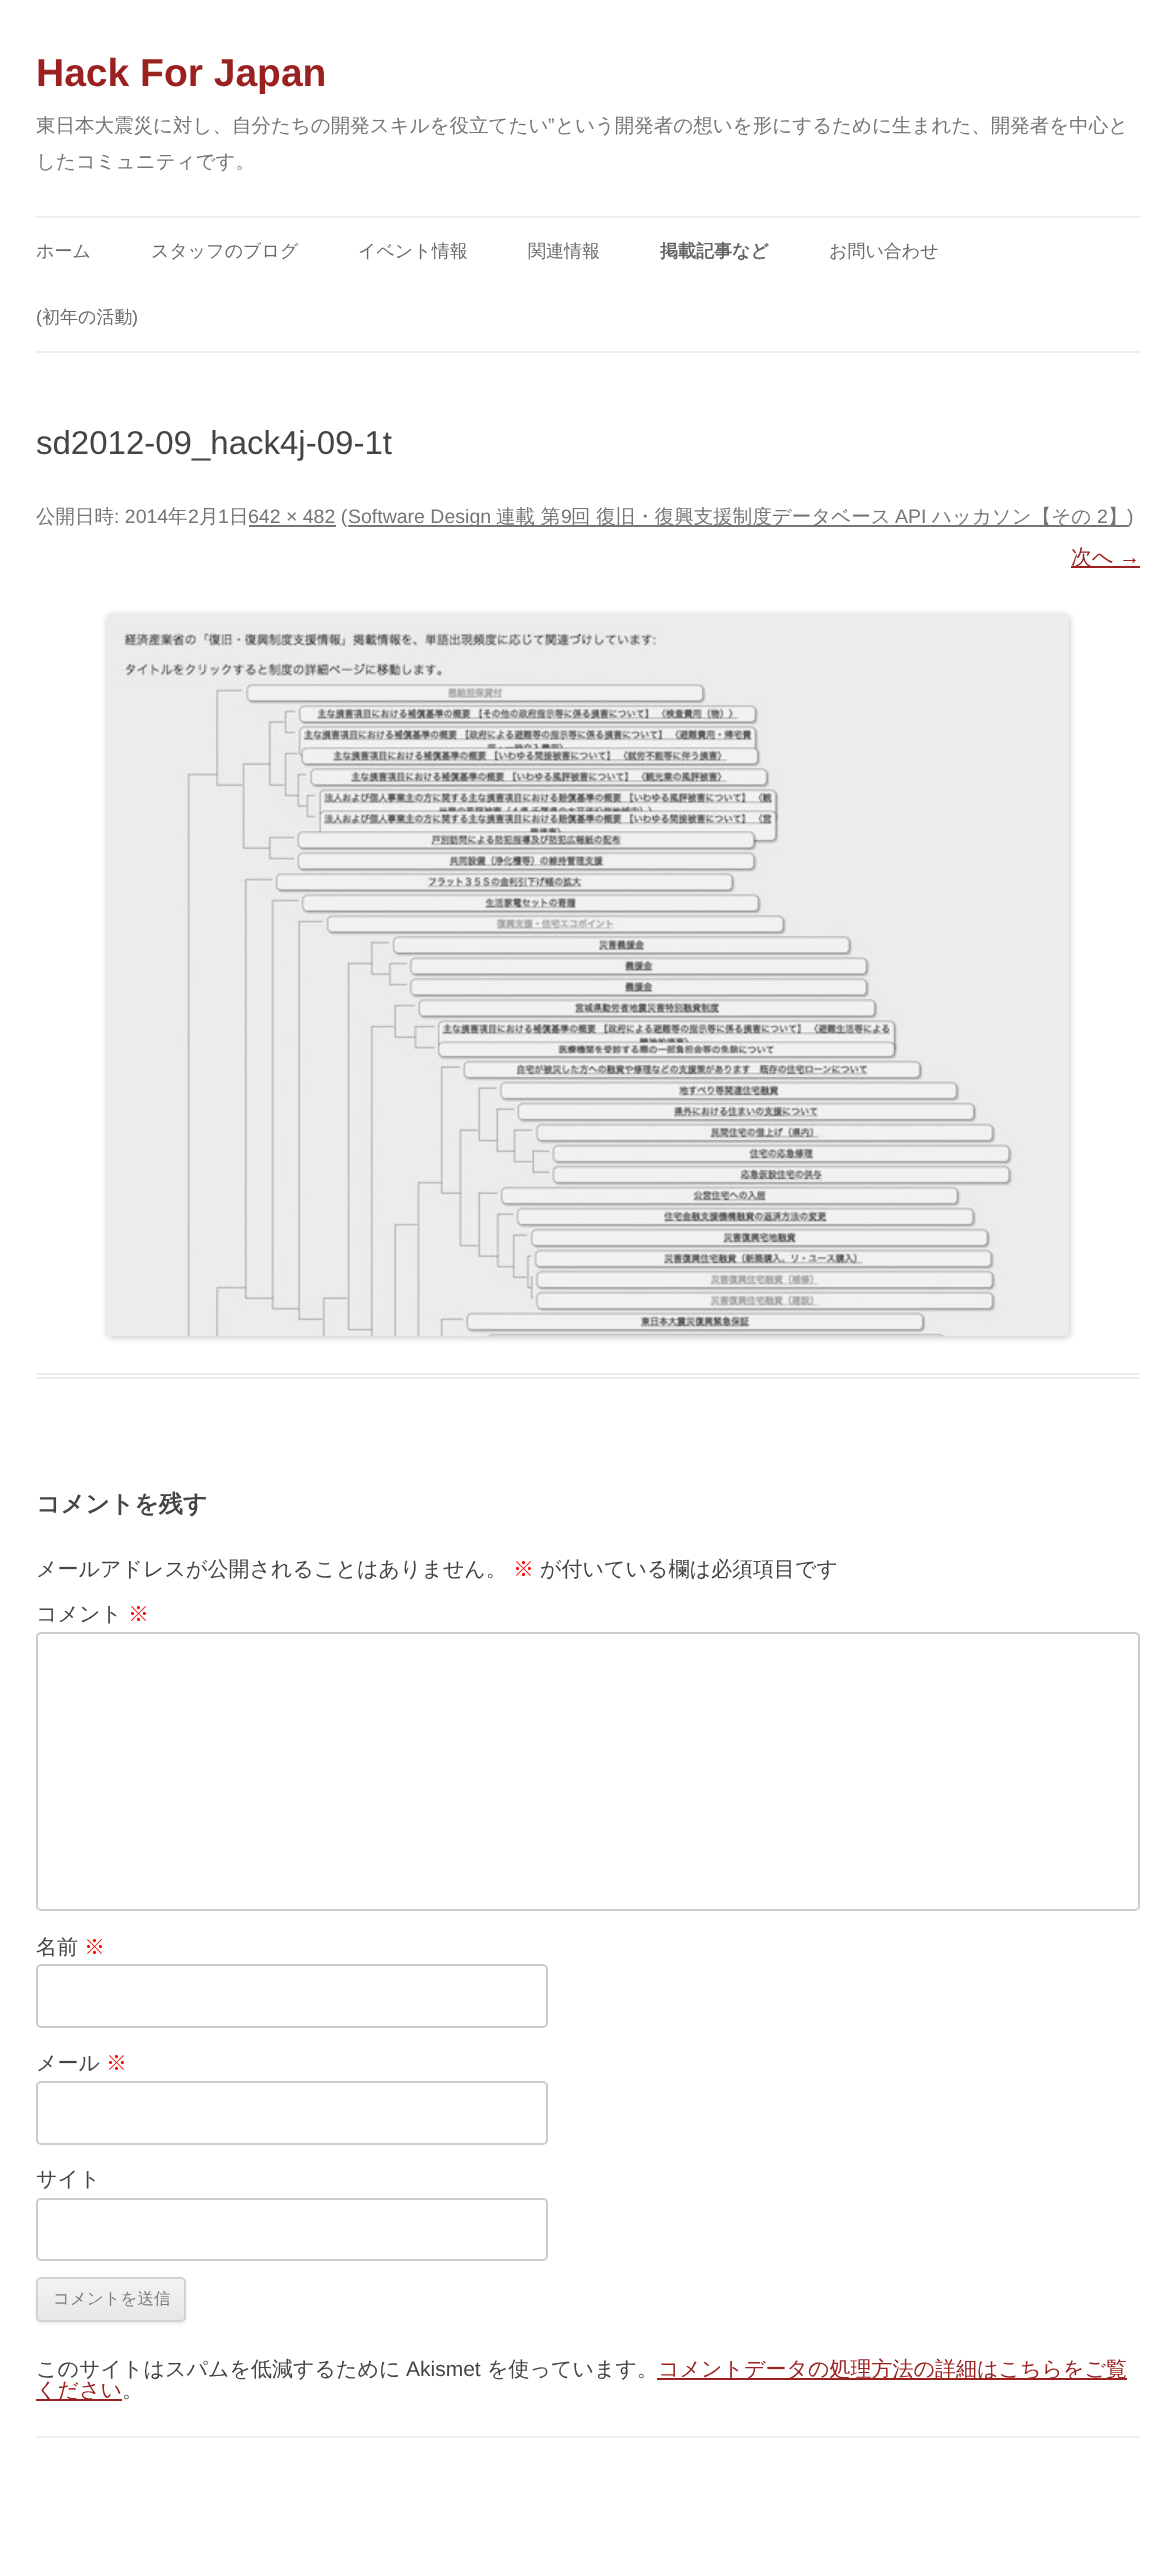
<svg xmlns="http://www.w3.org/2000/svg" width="1175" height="2555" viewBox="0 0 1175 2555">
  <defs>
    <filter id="blur1" x="-50%" y="-200%" width="200%" height="500%"><feGaussianBlur stdDeviation="3"/></filter>
    <filter id="blur2" x="-50%" y="-200%" width="200%" height="500%"><feGaussianBlur stdDeviation="1.5"/></filter>
    <clipPath id="clip1"><rect x="36" y="2277" width="150" height="45" rx="5"/></clipPath>
    <linearGradient id="g1" gradientUnits="userSpaceOnUse" x1="111" y1="2279" x2="111" y2="2321"><stop offset="0" stop-color="#f4f4f4"/><stop offset="1" stop-color="#e6e6e6"/></linearGradient>
  </defs>
  <rect width="100%" height="100%" fill="#ffffff"/>
  <text x="36" y="86" font-family="Liberation Sans" font-size="39" font-weight="bold" fill="#9b2121">Hack For Japan</text>
  <text x="36" y="132" font-family="WenQuanYi Zen Hei" font-size="19.5" font-weight="500" fill="#757575">東日本大震災に対し、自分たちの開発スキルを役立てたい</text>
  <text x="548" y="132" font-family="Liberation Sans" font-size="19.5" fill="#757575">”</text>
  <text x="555" y="132" font-family="WenQuanYi Zen Hei" font-size="19.5" font-weight="500" fill="#757575">という開発者の想いを形にするために生まれた、開発者を中心と</text>
  <text x="36" y="168" font-family="WenQuanYi Zen Hei" font-size="19.5" font-weight="500" fill="#757575">したコミュニティです。</text>
  <rect x="36" y="216" width="1104" height="2" fill="#ededed"/>
  <rect x="36" y="351" width="1104" height="2" fill="#ededed"/>
  <text x="36" y="257" font-family="WenQuanYi Zen Hei" font-size="18" font-weight="500" fill="#6a6a6a">ホーム</text>
  <text x="151" y="257" font-family="WenQuanYi Zen Hei" font-size="18" font-weight="500" fill="#6a6a6a">スタッフのブログ</text>
  <text x="358" y="257" font-family="WenQuanYi Zen Hei" font-size="18" font-weight="500" fill="#6a6a6a">イベント情報</text>
  <text x="528" y="257" font-family="WenQuanYi Zen Hei" font-size="18" font-weight="500" fill="#6a6a6a">関連情報</text>
  <text x="660" y="257" font-family="WenQuanYi Zen Hei" font-size="18" font-weight="bold" fill="#636363">掲載記事など</text>
  <text x="829" y="257" font-family="WenQuanYi Zen Hei" font-size="18" font-weight="500" fill="#6a6a6a">お問い合わせ</text>
  <text x="36" y="323" font-family="Liberation Sans" font-size="18" fill="#6a6a6a">(</text>
  <text x="42" y="323" font-family="WenQuanYi Zen Hei" font-size="18" font-weight="500" fill="#6a6a6a">初年の活動</text>
  <text x="132" y="323" font-family="Liberation Sans" font-size="18" fill="#6a6a6a">)</text>
  <rect x="36" y="1373" width="1104" height="2" fill="#ededed"/>
  <rect x="36" y="1377" width="1104" height="2" fill="#ededed"/>
  <text x="36" y="454" font-family="Liberation Sans" font-size="33" fill="#444444">sd2012-09_hack4j-09-1t</text>
  <text x="36" y="523" font-family="WenQuanYi Zen Hei" font-size="19.5" font-weight="500" fill="#757575">公開日時</text>
  <text x="114" y="523" font-family="Liberation Sans" font-size="19.5" fill="#757575">: 2014</text>
  <text x="168" y="523" font-family="WenQuanYi Zen Hei" font-size="19.5" font-weight="500" fill="#757575">年</text>
  <text x="188" y="523" font-family="Liberation Sans" font-size="19.5" fill="#757575">2</text>
  <text x="199" y="523" font-family="WenQuanYi Zen Hei" font-size="19.5" font-weight="500" fill="#757575">月</text>
  <text x="218" y="523" font-family="Liberation Sans" font-size="19.5" fill="#757575">1</text>
  <text x="229" y="523" font-family="WenQuanYi Zen Hei" font-size="19.5" font-weight="500" fill="#757575">日</text>
  <rect x="249" y="525" width="87" height="2" fill="#757575"/>
  <text x="248" y="523" font-family="Liberation Sans" font-size="19.5" fill="#757575">642 × 482 (</text>
  <rect x="348" y="525" width="780" height="2" fill="#757575"/>
  <text x="348" y="523" font-family="Liberation Sans" font-size="19.5" fill="#757575">Software Design</text>
  <text x="496" y="523" font-family="WenQuanYi Zen Hei" font-size="19.5" font-weight="500" fill="#757575">連載 第</text>
  <text x="561" y="523" font-family="Liberation Sans" font-size="19.5" fill="#757575">9</text>
  <text x="571" y="523" font-family="WenQuanYi Zen Hei" font-size="19.5" font-weight="500" fill="#757575">回 復旧・復興支援制度データベース</text>
  <text x="895" y="523" font-family="Liberation Sans" font-size="19.5" fill="#757575">API</text>
  <text x="932" y="523" font-family="WenQuanYi Zen Hei" font-size="19.5" font-weight="500" fill="#757575">ハッカソン【その</text>
  <text x="1097" y="523" font-family="Liberation Sans" font-size="19.5" fill="#757575">2</text>
  <text x="1108" y="523" font-family="WenQuanYi Zen Hei" font-size="19.5" font-weight="500" fill="#757575">】</text>
  <text x="1127" y="523" font-family="Liberation Sans" font-size="19.5" fill="#757575">)</text>
  <rect x="1071" y="566" width="69" height="2" fill="#9b2121"/>
  <text x="1071" y="564" font-family="WenQuanYi Zen Hei" font-size="21" font-weight="500" fill="#9b2121">次へ</text>
  <text x="1119" y="564" font-family="Liberation Sans" font-size="21" fill="#9b2121">→</text>
  <rect x="107" y="615" width="963" height="723" rx="5" fill="#000000" fill-opacity="0.2" filter="url(#blur1)"/>
  <image x="107" y="614" width="962" height="723" href="img1.png"/>
  <text x="36" y="1512" font-family="WenQuanYi Zen Hei" font-size="24" font-weight="bold" fill="#444444">コメントを残す</text>
  <text x="36" y="1576" font-family="WenQuanYi Zen Hei" font-size="21" font-weight="500" fill="#444444">メールアドレスが公開されることはありません。</text>
  <text x="513" y="1576" font-family="WenQuanYi Zen Hei" font-size="21" font-weight="500" fill="#ff0000">※</text>
  <text x="540" y="1576" font-family="WenQuanYi Zen Hei" font-size="21" font-weight="500" fill="#444444">が付いている欄は必須項目です</text>
  <text x="36" y="1621" font-family="WenQuanYi Zen Hei" font-size="21" font-weight="500" fill="#444444">コメント</text>
  <text x="128" y="1621" font-family="WenQuanYi Zen Hei" font-size="21" font-weight="500" fill="#ff0000">※</text>
  <rect x="37" y="1633" width="1102" height="277" rx="4" fill="none" stroke="#cccccc" stroke-width="2"/>
  <text x="36" y="1954" font-family="WenQuanYi Zen Hei" font-size="21" font-weight="500" fill="#444444">名前</text>
  <text x="84" y="1954" font-family="WenQuanYi Zen Hei" font-size="21" font-weight="500" fill="#ff0000">※</text>
  <rect x="37" y="1965" width="510" height="62" rx="4" fill="none" stroke="#cccccc" stroke-width="2"/>
  <text x="36" y="2070" font-family="WenQuanYi Zen Hei" font-size="21" font-weight="500" fill="#444444">メール</text>
  <text x="106" y="2070" font-family="WenQuanYi Zen Hei" font-size="21" font-weight="500" fill="#ff0000">※</text>
  <rect x="37" y="2082" width="510" height="62" rx="4" fill="none" stroke="#cccccc" stroke-width="2"/>
  <text x="36" y="2186" font-family="WenQuanYi Zen Hei" font-size="21" font-weight="500" fill="#444444">サイト</text>
  <rect x="37" y="2199" width="510" height="61" rx="4" fill="none" stroke="#cccccc" stroke-width="2"/>
  <rect x="36" y="2279" width="150" height="45" rx="5" fill="#404040" fill-opacity="0.1" filter="url(#blur2)"/>
  <g clip-path="url(#clip1)">
    <rect x="36" y="2279" width="150" height="42" fill="url(#g1)"/>
  </g>
  <rect x="37" y="2278" width="148" height="43" rx="4" fill="none" stroke="#d2d2d2" stroke-width="2"/>
  <text x="53" y="2304" font-family="WenQuanYi Zen Hei" font-size="16.5" font-weight="500" fill="#7c7c7c">コメントを送信</text>
  <text x="36" y="2376" font-family="WenQuanYi Zen Hei" font-size="21" font-weight="500" fill="#444444">このサイトはスパムを低減するために</text>
  <text x="406" y="2376" font-family="Liberation Sans" font-size="21" fill="#444444">Akismet</text>
  <text x="487" y="2376" font-family="WenQuanYi Zen Hei" font-size="21" font-weight="500" fill="#444444">を使っています。</text>
  <rect x="657" y="2378" width="470" height="2" fill="#9b2121"/>
  <text x="658" y="2376" font-family="WenQuanYi Zen Hei" font-size="21" font-weight="500" fill="#9b2121">コメントデータの処理方法の詳細はこちらをご覧</text>
  <rect x="36" y="2399" width="86" height="2" fill="#9b2121"/>
  <text x="36" y="2397" font-family="WenQuanYi Zen Hei" font-size="21" font-weight="500" fill="#9b2121">ください</text>
  <text x="122" y="2397" font-family="WenQuanYi Zen Hei" font-size="21" font-weight="500" fill="#444444">。</text>
  <rect x="36" y="2436" width="1104" height="2" fill="#ededed"/>
</svg>
